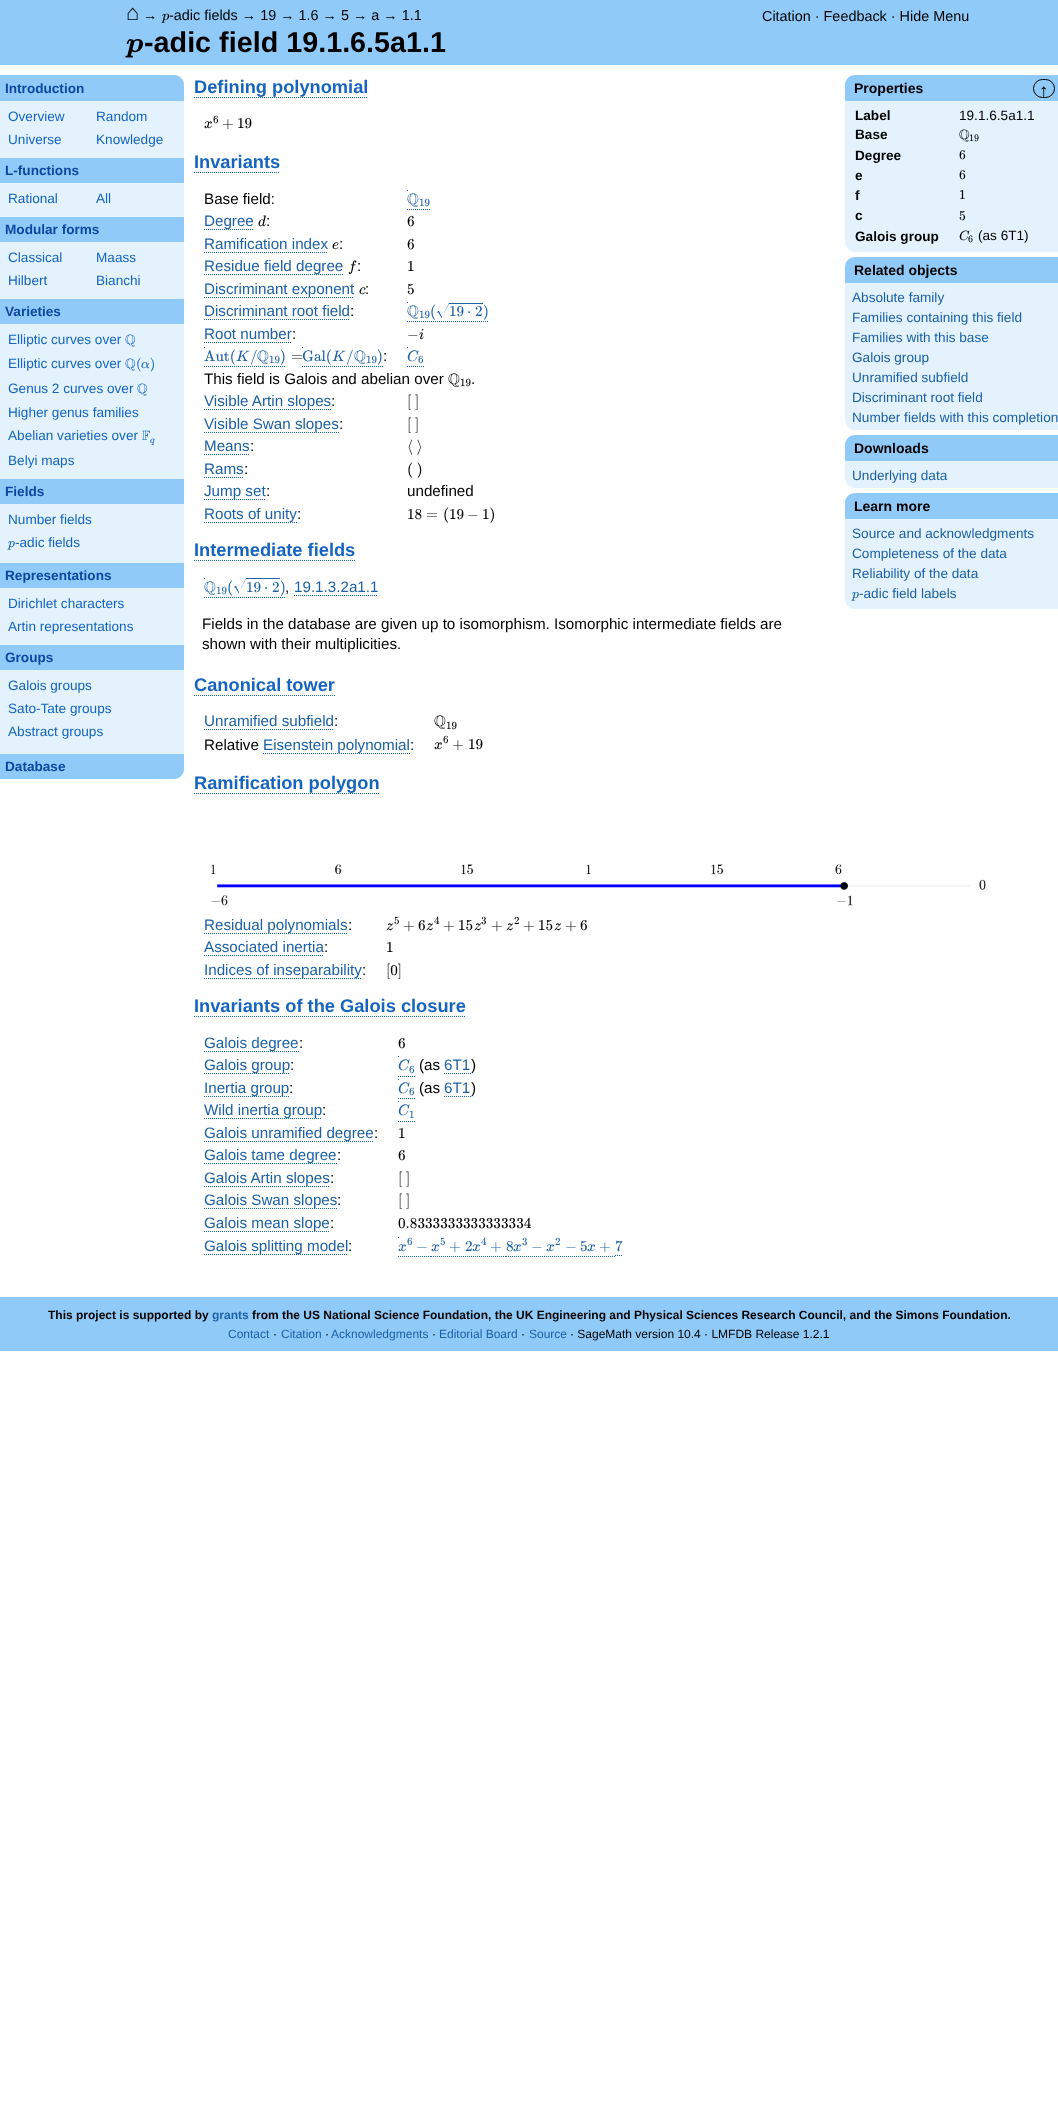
<svg xmlns="http://www.w3.org/2000/svg" width="1058" height="2116" viewBox="0 0 1058 2116">
  <defs>
    <clipPath id="clip1"><rect x="436" y="302" width="47" height="16"/></clipPath>
    <clipPath id="clip2"><rect x="233" y="577" width="47" height="17"/></clipPath>
  </defs>
  <rect width="100%" height="100%" fill="#ffffff"/>
  <rect x="0" y="0" width="1058" height="65" fill="#90caf9"/>
  <text x="126" y="20" font-family="Liberation Sans" font-size="22" fill="#000000">⌂</text>
  <text x="143" y="20" font-family="Liberation Sans" font-size="14.4" fill="#000000">→</text>
  <text x="169" y="20" font-family="Liberation Sans" font-size="14.4" fill="#000000">-adic fields → 19 → 1.6 → 5 → a → 1.1</text>
  <text x="162" y="20" font-family="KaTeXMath" font-size="14.4" font-style="italic" fill="#000000">p</text>
  <text x="762" y="21" font-family="Liberation Sans" font-size="14.4" fill="#000000">Citation · Feedback · Hide Menu</text>
  <text x="126" y="52" font-family="KaTeXMath" font-size="28.75" font-weight="bold" font-style="italic" fill="#000000">p</text>
  <text x="144" y="52" font-family="Liberation Sans" font-size="28.75" font-weight="bold" fill="#000000">-adic field 19.1.6.5a1.1</text>
  <path d="M0 75H174C179.5 75 184 79.5 184 85V769C184 774.5 179.5 779 174 779H0Z" fill="#e3f2fd"/>
  <path d="M0 75H174C179.5 75 184 79.5 184 85V101H0Z" fill="#90caf9"/>
  <text x="5" y="93" font-family="Liberation Sans" font-size="13.6" font-weight="bold" fill="#0d47a1">Introduction</text>
  <text x="8" y="121" font-family="Liberation Sans" font-size="13.6" fill="#1565c0">Overview</text>
  <text x="96" y="121" font-family="Liberation Sans" font-size="13.6" fill="#1565c0">Random</text>
  <text x="8" y="144" font-family="Liberation Sans" font-size="13.6" fill="#1565c0">Universe</text>
  <text x="96" y="144" font-family="Liberation Sans" font-size="13.6" fill="#1565c0">Knowledge</text>
  <rect x="0" y="158" width="184" height="25" fill="#90caf9"/>
  <text x="5" y="175" font-family="Liberation Sans" font-size="13.6" font-weight="bold" fill="#0d47a1">L-functions</text>
  <text x="8" y="203" font-family="Liberation Sans" font-size="13.6" fill="#1565c0">Rational</text>
  <text x="96" y="203" font-family="Liberation Sans" font-size="13.6" fill="#1565c0">All</text>
  <rect x="0" y="217" width="184" height="25" fill="#90caf9"/>
  <text x="5" y="234" font-family="Liberation Sans" font-size="13.6" font-weight="bold" fill="#0d47a1">Modular forms</text>
  <text x="8" y="262" font-family="Liberation Sans" font-size="13.6" fill="#1565c0">Classical</text>
  <text x="96" y="262" font-family="Liberation Sans" font-size="13.6" fill="#1565c0">Maass</text>
  <text x="8" y="285" font-family="Liberation Sans" font-size="13.6" fill="#1565c0">Hilbert</text>
  <text x="96" y="285" font-family="Liberation Sans" font-size="13.6" fill="#1565c0">Bianchi</text>
  <rect x="0" y="299" width="184" height="25" fill="#90caf9"/>
  <text x="5" y="316" font-family="Liberation Sans" font-size="13.6" font-weight="bold" fill="#0d47a1">Varieties</text>
  <text x="8" y="344" font-family="Liberation Sans" font-size="13.6" fill="#1565c0">Elliptic curves over</text>
  <text x="125" y="344" font-family="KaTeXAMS" font-size="13.6" fill="#1565c0">Q</text>
  <text x="8" y="368" font-family="Liberation Sans" font-size="13.6" fill="#1565c0">Elliptic curves over</text>
  <text x="125" y="368" font-family="KaTeXAMS" font-size="13.6" fill="#1565c0">Q</text>
  <text x="136" y="368" font-family="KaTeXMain" font-size="13.6" fill="#1565c0">(</text>
  <text x="141" y="368" font-family="KaTeXMath" font-size="13.6" font-style="italic" fill="#1565c0">α</text>
  <text x="150" y="368" font-family="KaTeXMain" font-size="13.6" fill="#1565c0">)</text>
  <text x="8" y="393" font-family="Liberation Sans" font-size="13.6" fill="#1565c0">Genus 2 curves over</text>
  <text x="137" y="393" font-family="KaTeXAMS" font-size="13.6" fill="#1565c0">Q</text>
  <text x="8" y="417" font-family="Liberation Sans" font-size="13.6" fill="#1565c0">Higher genus families</text>
  <text x="8" y="440" font-family="Liberation Sans" font-size="13.6" fill="#1565c0">Abelian varieties over</text>
  <text x="142" y="440" font-family="KaTeXAMS" font-size="13.6" fill="#1565c0">F</text>
  <text x="150" y="443" font-family="KaTeXMath" font-size="10" font-style="italic" fill="#1565c0">q</text>
  <text x="8" y="465" font-family="Liberation Sans" font-size="13.6" fill="#1565c0">Belyi maps</text>
  <rect x="0" y="479" width="184" height="25" fill="#90caf9"/>
  <text x="5" y="496" font-family="Liberation Sans" font-size="13.6" font-weight="bold" fill="#0d47a1">Fields</text>
  <text x="8" y="524" font-family="Liberation Sans" font-size="13.6" fill="#1565c0">Number fields</text>
  <text x="8" y="547" font-family="KaTeXMath" font-size="13.6" font-style="italic" fill="#1565c0">p</text>
  <text x="15" y="547" font-family="Liberation Sans" font-size="13.6" fill="#1565c0">-adic fields</text>
  <rect x="0" y="563" width="184" height="25" fill="#90caf9"/>
  <text x="5" y="580" font-family="Liberation Sans" font-size="13.6" font-weight="bold" fill="#0d47a1">Representations</text>
  <text x="8" y="608" font-family="Liberation Sans" font-size="13.6" fill="#1565c0">Dirichlet characters</text>
  <text x="8" y="631" font-family="Liberation Sans" font-size="13.6" fill="#1565c0">Artin representations</text>
  <rect x="0" y="645" width="184" height="25" fill="#90caf9"/>
  <text x="5" y="662" font-family="Liberation Sans" font-size="13.6" font-weight="bold" fill="#0d47a1">Groups</text>
  <text x="8" y="690" font-family="Liberation Sans" font-size="13.6" fill="#1565c0">Galois groups</text>
  <text x="8" y="713" font-family="Liberation Sans" font-size="13.6" fill="#1565c0">Sato-Tate groups</text>
  <text x="8" y="736" font-family="Liberation Sans" font-size="13.6" fill="#1565c0">Abstract groups</text>
  <path d="M0 754H184V769C184 774.5 179.5 779 174 779H0Z" fill="#90caf9"/>
  <text x="5" y="771" font-family="Liberation Sans" font-size="13.6" font-weight="bold" fill="#0d47a1">Database</text>
  <text x="194" y="93" font-family="Liberation Sans" font-size="18.25" font-weight="bold" fill="#1565c0">Defining polynomial</text>
  <path d="M194 97.5H368" fill="none" stroke="#1565c0" stroke-dasharray="1 1"/>
  <text x="213" y="123" font-family="KaTeXMain" font-size="11" fill="#000000">6</text>
  <text x="204" y="128" font-family="KaTeXMath" font-size="15.2" font-style="italic" fill="#000000">x</text>
  <text x="222" y="128" font-family="KaTeXMain" font-size="15.2" fill="#000000">+</text>
  <text x="237" y="128" font-family="KaTeXMain" font-size="15.2" fill="#000000">19</text>
  <text x="194" y="168" font-family="Liberation Sans" font-size="18.25" font-weight="bold" fill="#1565c0">Invariants</text>
  <path d="M194 172.5H280" fill="none" stroke="#1565c0" stroke-dasharray="1 1"/>
  <text x="204" y="204" font-family="Liberation Sans" font-size="15.2" fill="#000000">Base field:</text>
  <rect x="407" y="190" width="1" height="1" fill="#1565c0"/>
  <path d="M407 209.5H430" fill="none" stroke="#1565c0" stroke-dasharray="1 1"/>
  <text x="407" y="204" font-family="KaTeXAMS" font-size="15.2" fill="#1c61a6">Q</text>
  <text x="419" y="206" font-family="KaTeXMain" font-size="11" fill="#1c61a6">19</text>
  <path d="M204 229.5H254" fill="none" stroke="#1565c0" stroke-dasharray="1 1"/>
  <text x="204" y="226" font-family="Liberation Sans" font-size="15.2" fill="#1c61a6">Degree</text>
  <text x="258" y="226" font-family="KaTeXMath" font-size="15.2" font-style="italic" fill="#000000">d</text>
  <text x="266" y="226" font-family="Liberation Sans" font-size="15.2" fill="#000000">:</text>
  <text x="407" y="226" font-family="KaTeXMain" font-size="15.2" fill="#000000">6</text>
  <text x="204" y="249" font-family="Liberation Sans" font-size="15.2" fill="#1c61a6">Ramification index</text>
  <path d="M204 252.5H328" fill="none" stroke="#1565c0" stroke-dasharray="1 1"/>
  <text x="332" y="249" font-family="KaTeXMath" font-size="15.2" font-style="italic" fill="#000000">e</text>
  <text x="339" y="249" font-family="Liberation Sans" font-size="15.2" fill="#000000">:</text>
  <text x="407" y="249" font-family="KaTeXMain" font-size="15.2" fill="#000000">6</text>
  <path d="M204 274.5H343" fill="none" stroke="#1565c0" stroke-dasharray="1 1"/>
  <text x="204" y="271" font-family="Liberation Sans" font-size="15.2" fill="#1c61a6">Residue field degree</text>
  <text x="348" y="271" font-family="KaTeXMath" font-size="15.2" font-style="italic" fill="#000000">f</text>
  <text x="357" y="271" font-family="Liberation Sans" font-size="15.2" fill="#000000">:</text>
  <text x="407" y="271" font-family="KaTeXMain" font-size="15.2" fill="#000000">1</text>
  <path d="M204 297.5H354" fill="none" stroke="#1565c0" stroke-dasharray="1 1"/>
  <text x="204" y="294" font-family="Liberation Sans" font-size="15.2" fill="#1c61a6">Discriminant exponent</text>
  <text x="359" y="294" font-family="KaTeXMath" font-size="15.2" font-style="italic" fill="#000000">c</text>
  <text x="365" y="294" font-family="Liberation Sans" font-size="15.2" fill="#000000">:</text>
  <text x="407" y="294" font-family="KaTeXMain" font-size="15.2" fill="#000000">5</text>
  <text x="204" y="316" font-family="Liberation Sans" font-size="15.2" fill="#1c61a6">Discriminant root field</text>
  <path d="M204 319.5H350" fill="none" stroke="#1565c0" stroke-dasharray="1 1"/>
  <text x="350" y="316" font-family="Liberation Sans" font-size="15.2" fill="#000000">:</text>
  <rect x="407" y="302" width="1" height="1" fill="#1565c0"/>
  <path d="M407 321.5H489" fill="none" stroke="#1565c0" stroke-dasharray="1 1"/>
  <text x="407" y="316" font-family="KaTeXAMS" font-size="15.2" fill="#1c61a6">Q</text>
  <text x="419" y="318" font-family="KaTeXMain" font-size="11" fill="#1c61a6">19</text>
  <text x="430" y="316" font-family="KaTeXMain" font-size="15.2" fill="#1c61a6">(</text>
  <g clip-path="url(#clip1)">
    <path d="M437 313C436 313 439 310 439 311L442 317L449 303H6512V304H449L442 317C442 319 442 319 441 317L438 312ZM449 303H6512V304H449Z" fill="#1c61a6"/>
  </g>
  <text x="449" y="316" font-family="KaTeXMain" font-size="15.2" fill="#1c61a6">19</text>
  <text x="467" y="316" font-family="KaTeXMain" font-size="15.2" fill="#1c61a6">⋅</text>
  <text x="475" y="316" font-family="KaTeXMain" font-size="15.2" fill="#1c61a6">2</text>
  <text x="483" y="316" font-family="KaTeXMain" font-size="15.2" fill="#1c61a6">)</text>
  <text x="204" y="339" font-family="Liberation Sans" font-size="15.2" fill="#1c61a6">Root number</text>
  <path d="M204 342.5H292" fill="none" stroke="#1565c0" stroke-dasharray="1 1"/>
  <text x="292" y="339" font-family="Liberation Sans" font-size="15.2" fill="#000000">:</text>
  <text x="407" y="339" font-family="KaTeXMain" font-size="15.2" fill="#000000">−</text>
  <text x="419" y="339" font-family="KaTeXMath" font-size="15.2" font-style="italic" fill="#000000">i</text>
  <rect x="204" y="347" width="1" height="1" fill="#1565c0"/>
  <path d="M204 366.5H286" fill="none" stroke="#1565c0" stroke-dasharray="1 1"/>
  <text x="204" y="361" font-family="KaTeXMain" font-size="15.2" fill="#1c61a6">Aut(</text>
  <text x="236" y="361" font-family="KaTeXMath" font-size="15.2" font-style="italic" fill="#1c61a6">K</text>
  <text x="250" y="361" font-family="KaTeXMain" font-size="15.2" fill="#1c61a6">/</text>
  <text x="257" y="361" font-family="KaTeXAMS" font-size="15.2" fill="#1c61a6">Q</text>
  <text x="269" y="363" font-family="KaTeXMain" font-size="11" fill="#1c61a6">19</text>
  <text x="280" y="361" font-family="KaTeXMain" font-size="15.2" fill="#1c61a6">)</text>
  <text x="291" y="361" font-family="KaTeXMain" font-size="15.2" fill="#000000">=</text>
  <rect x="302" y="347" width="1" height="1" fill="#1565c0"/>
  <path d="M302 366.5H383" fill="none" stroke="#1565c0" stroke-dasharray="1 1"/>
  <text x="302" y="361" font-family="KaTeXMain" font-size="15.2" fill="#1c61a6">Gal(</text>
  <text x="332" y="361" font-family="KaTeXMath" font-size="15.2" font-style="italic" fill="#1c61a6">K</text>
  <text x="346" y="361" font-family="KaTeXMain" font-size="15.2" fill="#1c61a6">/</text>
  <text x="354" y="361" font-family="KaTeXAMS" font-size="15.2" fill="#1c61a6">Q</text>
  <text x="366" y="363" font-family="KaTeXMain" font-size="11" fill="#1c61a6">19</text>
  <text x="377" y="361" font-family="KaTeXMain" font-size="15.2" fill="#1c61a6">)</text>
  <text x="383" y="361" font-family="Liberation Sans" font-size="15.2" fill="#000000">:</text>
  <rect x="407" y="347" width="1" height="1" fill="#1565c0"/>
  <path d="M407 366.5H424" fill="none" stroke="#1565c0" stroke-dasharray="1 1"/>
  <text x="407" y="361" font-family="KaTeXMath" font-size="15.2" font-style="italic" fill="#1c61a6">C</text>
  <text x="418" y="363" font-family="KaTeXMain" font-size="11" fill="#1c61a6">6</text>
  <text x="204" y="384" font-family="Liberation Sans" font-size="15.2" fill="#000000">This field is Galois and abelian over</text>
  <text x="448" y="384" font-family="KaTeXAMS" font-size="15.2" fill="#000000">Q</text>
  <text x="460" y="386" font-family="KaTeXMain" font-size="11" fill="#000000">19</text>
  <text x="471" y="384" font-family="KaTeXMain" font-size="15.2" fill="#000000">.</text>
  <path d="M204 409.5H331" fill="none" stroke="#1565c0" stroke-dasharray="1 1"/>
  <text x="204" y="406" font-family="Liberation Sans" font-size="15.2" fill="#1c61a6">Visible Artin slopes</text>
  <text x="331" y="406" font-family="Liberation Sans" font-size="15.2" fill="#000000">:</text>
  <text x="407" y="406" font-family="KaTeXMain" font-size="15.2" fill="#000000">[ ]</text>
  <path d="M204 432.5H339" fill="none" stroke="#1565c0" stroke-dasharray="1 1"/>
  <text x="204" y="429" font-family="Liberation Sans" font-size="15.2" fill="#1c61a6">Visible Swan slopes</text>
  <text x="339" y="429" font-family="Liberation Sans" font-size="15.2" fill="#000000">:</text>
  <text x="407" y="429" font-family="KaTeXMain" font-size="15.2" fill="#000000">[ ]</text>
  <text x="204" y="451" font-family="Liberation Sans" font-size="15.2" fill="#1c61a6">Means</text>
  <path d="M204 454.5H250" fill="none" stroke="#1565c0" stroke-dasharray="1 1"/>
  <text x="250" y="451" font-family="Liberation Sans" font-size="15.2" fill="#000000">:</text>
  <text x="407" y="451" font-family="KaTeXMain" font-size="15.2" fill="#000000">⟨ ⟩</text>
  <text x="204" y="474" font-family="Liberation Sans" font-size="15.2" fill="#1c61a6">Rams</text>
  <path d="M204 477.5H244" fill="none" stroke="#1565c0" stroke-dasharray="1 1"/>
  <text x="244" y="474" font-family="Liberation Sans" font-size="15.2" fill="#000000">:</text>
  <text x="407" y="474" font-family="KaTeXMain" font-size="15.2" fill="#000000">( )</text>
  <path d="M204 499.5H266" fill="none" stroke="#1565c0" stroke-dasharray="1 1"/>
  <text x="204" y="496" font-family="Liberation Sans" font-size="15.2" fill="#1c61a6">Jump set</text>
  <text x="266" y="496" font-family="Liberation Sans" font-size="15.2" fill="#000000">:</text>
  <text x="407" y="496" font-family="Liberation Sans" font-size="15.2" fill="#000000">undefined</text>
  <path d="M204 522.5H297" fill="none" stroke="#1565c0" stroke-dasharray="1 1"/>
  <text x="204" y="519" font-family="Liberation Sans" font-size="15.2" fill="#1c61a6">Roots of unity</text>
  <text x="297" y="519" font-family="Liberation Sans" font-size="15.2" fill="#000000">:</text>
  <text x="407" y="519" font-family="KaTeXMain" font-size="15.2" fill="#000000">18</text>
  <text x="426" y="519" font-family="KaTeXMain" font-size="15.2" fill="#000000">=</text>
  <text x="443" y="519" font-family="KaTeXMain" font-size="15.2" fill="#000000">(19</text>
  <text x="467" y="519" font-family="KaTeXMain" font-size="15.2" fill="#000000">−</text>
  <text x="482" y="519" font-family="KaTeXMain" font-size="15.2" fill="#000000">1)</text>
  <text x="194" y="556" font-family="Liberation Sans" font-size="18.25" font-weight="bold" fill="#1565c0">Intermediate fields</text>
  <path d="M194 560.5H355" fill="none" stroke="#1565c0" stroke-dasharray="1 1"/>
  <rect x="204" y="578" width="1" height="1" fill="#1565c0"/>
  <path d="M204 597.5H285" fill="none" stroke="#1565c0" stroke-dasharray="1 1"/>
  <text x="204" y="592" font-family="KaTeXAMS" font-size="15.2" fill="#1c61a6">Q</text>
  <text x="216" y="594" font-family="KaTeXMain" font-size="11" fill="#1c61a6">19</text>
  <text x="227" y="592" font-family="KaTeXMain" font-size="15.2" fill="#1c61a6">(</text>
  <g clip-path="url(#clip2)">
    <path d="M234 588C233 588 236 585 236 586L239 592L246 578H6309V579H246L239 592C239 594 239 594 238 592L235 587ZM246 578H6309V579H246Z" fill="#1c61a6"/>
  </g>
  <text x="246" y="592" font-family="KaTeXMain" font-size="15.2" fill="#1c61a6">19</text>
  <text x="264" y="592" font-family="KaTeXMain" font-size="15.2" fill="#1c61a6">⋅</text>
  <text x="272" y="592" font-family="KaTeXMain" font-size="15.2" fill="#1c61a6">2</text>
  <text x="280" y="592" font-family="KaTeXMain" font-size="15.2" fill="#1c61a6">)</text>
  <text x="285" y="592" font-family="Liberation Sans" font-size="15.2" fill="#000000">,</text>
  <text x="294" y="592" font-family="Liberation Sans" font-size="15.2" fill="#1c61a6">19.1.3.2a1.1</text>
  <path d="M294 595.5H378" fill="none" stroke="#1565c0" stroke-dasharray="1 1"/>
  <text x="202" y="629" font-family="Liberation Sans" font-size="15.2" fill="#000000">Fields in the database are given up to isomorphism. Isomorphic intermediate fields are</text>
  <text x="202" y="649" font-family="Liberation Sans" font-size="15.2" fill="#000000">shown with their multiplicities.</text>
  <text x="194" y="691" font-family="Liberation Sans" font-size="18.25" font-weight="bold" fill="#1565c0">Canonical tower</text>
  <path d="M194 695.5H335" fill="none" stroke="#1565c0" stroke-dasharray="1 1"/>
  <text x="204" y="726" font-family="Liberation Sans" font-size="15.2" fill="#1c61a6">Unramified subfield</text>
  <path d="M204 729.5H334" fill="none" stroke="#1565c0" stroke-dasharray="1 1"/>
  <text x="334" y="726" font-family="Liberation Sans" font-size="15.2" fill="#000000">:</text>
  <text x="434" y="726" font-family="KaTeXAMS" font-size="15.2" fill="#000000">Q</text>
  <text x="446" y="729" font-family="KaTeXMain" font-size="11" fill="#000000">19</text>
  <text x="204" y="750" font-family="Liberation Sans" font-size="15.2" fill="#000000">Relative</text>
  <path d="M263 753.5H410" fill="none" stroke="#1565c0" stroke-dasharray="1 1"/>
  <text x="263" y="750" font-family="Liberation Sans" font-size="15.2" fill="#1c61a6">Eisenstein polynomial</text>
  <text x="410" y="750" font-family="Liberation Sans" font-size="15.2" fill="#000000">:</text>
  <text x="443" y="743" font-family="KaTeXMain" font-size="11" fill="#000000">6</text>
  <text x="434" y="749" font-family="KaTeXMath" font-size="15.2" font-style="italic" fill="#000000">x</text>
  <text x="452" y="749" font-family="KaTeXMain" font-size="15.2" fill="#000000">+</text>
  <text x="468" y="749" font-family="KaTeXMain" font-size="15.2" fill="#000000">19</text>
  <text x="194" y="789" font-family="Liberation Sans" font-size="18.25" font-weight="bold" fill="#1565c0">Ramification polygon</text>
  <path d="M194 793.5H379" fill="none" stroke="#1565c0" stroke-dasharray="1 1"/>
  <image x="210" y="864" width="776" height="42" href="img1.png"/>
  <path d="M204 933.5H348" fill="none" stroke="#1565c0" stroke-dasharray="1 1"/>
  <text x="204" y="930" font-family="Liberation Sans" font-size="15.2" fill="#1c61a6">Residual polynomials</text>
  <text x="348" y="930" font-family="Liberation Sans" font-size="15.2" fill="#000000">:</text>
  <text x="394" y="924" font-family="KaTeXMain" font-size="11" fill="#000000">5</text>
  <text x="386" y="930" font-family="KaTeXMath" font-size="15.2" font-style="italic" fill="#000000">z</text>
  <text x="403" y="930" font-family="KaTeXMain" font-size="15.2" fill="#000000">+</text>
  <text x="418" y="930" font-family="KaTeXMain" font-size="15.2" fill="#000000">6</text>
  <text x="434" y="924" font-family="KaTeXMain" font-size="11" fill="#000000">4</text>
  <text x="426" y="930" font-family="KaTeXMath" font-size="15.2" font-style="italic" fill="#000000">z</text>
  <text x="443" y="930" font-family="KaTeXMain" font-size="15.2" fill="#000000">+</text>
  <text x="458" y="930" font-family="KaTeXMain" font-size="15.2" fill="#000000">15</text>
  <text x="481" y="924" font-family="KaTeXMain" font-size="11" fill="#000000">3</text>
  <text x="474" y="930" font-family="KaTeXMath" font-size="15.2" font-style="italic" fill="#000000">z</text>
  <text x="491" y="930" font-family="KaTeXMain" font-size="15.2" fill="#000000">+</text>
  <text x="514" y="924" font-family="KaTeXMain" font-size="11" fill="#000000">2</text>
  <text x="506" y="930" font-family="KaTeXMath" font-size="15.2" font-style="italic" fill="#000000">z</text>
  <text x="523" y="930" font-family="KaTeXMain" font-size="15.2" fill="#000000">+</text>
  <text x="538" y="930" font-family="KaTeXMain" font-size="15.2" fill="#000000">15</text>
  <text x="554" y="930" font-family="KaTeXMath" font-size="15.2" font-style="italic" fill="#000000">z</text>
  <text x="565" y="930" font-family="KaTeXMain" font-size="15.2" fill="#000000">+</text>
  <text x="580" y="930" font-family="KaTeXMain" font-size="15.2" fill="#000000">6</text>
  <text x="204" y="952" font-family="Liberation Sans" font-size="15.2" fill="#1c61a6">Associated inertia</text>
  <path d="M204 955.5H324" fill="none" stroke="#1565c0" stroke-dasharray="1 1"/>
  <text x="324" y="952" font-family="Liberation Sans" font-size="15.2" fill="#000000">:</text>
  <text x="386" y="952" font-family="KaTeXMain" font-size="15.2" fill="#000000">1</text>
  <path d="M204 978.5H362" fill="none" stroke="#1565c0" stroke-dasharray="1 1"/>
  <text x="204" y="975" font-family="Liberation Sans" font-size="15.2" fill="#1c61a6">Indices of inseparability</text>
  <text x="362" y="975" font-family="Liberation Sans" font-size="15.2" fill="#000000">:</text>
  <text x="386" y="975" font-family="KaTeXMain" font-size="15.2" fill="#000000">[0]</text>
  <text x="194" y="1012" font-family="Liberation Sans" font-size="18.25" font-weight="bold" fill="#1565c0">Invariants of the Galois closure</text>
  <path d="M194 1016.5H466" fill="none" stroke="#1565c0" stroke-dasharray="1 1"/>
  <path d="M204 1051.5H299" fill="none" stroke="#1565c0" stroke-dasharray="1 1"/>
  <text x="204" y="1048" font-family="Liberation Sans" font-size="15.2" fill="#1c61a6">Galois degree</text>
  <text x="299" y="1048" font-family="Liberation Sans" font-size="15.2" fill="#000000">:</text>
  <text x="398" y="1048" font-family="KaTeXMain" font-size="15.2" fill="#000000">6</text>
  <path d="M204 1073.5H290" fill="none" stroke="#1565c0" stroke-dasharray="1 1"/>
  <text x="204" y="1070" font-family="Liberation Sans" font-size="15.2" fill="#1c61a6">Galois group</text>
  <text x="290" y="1070" font-family="Liberation Sans" font-size="15.2" fill="#000000">:</text>
  <rect x="398" y="1056" width="1" height="1" fill="#1565c0"/>
  <path d="M398 1076.5H415" fill="none" stroke="#1565c0" stroke-dasharray="1 1"/>
  <text x="398" y="1070" font-family="KaTeXMath" font-size="15.2" font-style="italic" fill="#1c61a6">C</text>
  <text x="409" y="1073" font-family="KaTeXMain" font-size="11" fill="#1c61a6">6</text>
  <text x="419" y="1070" font-family="Liberation Sans" font-size="15.2" fill="#000000">(as</text>
  <text x="444" y="1070" font-family="Liberation Sans" font-size="15.2" fill="#1c61a6">6T1</text>
  <path d="M444 1073.5H471" fill="none" stroke="#1565c0" stroke-dasharray="1 1"/>
  <text x="471" y="1070" font-family="Liberation Sans" font-size="15.2" fill="#000000">)</text>
  <path d="M204 1096.5H289" fill="none" stroke="#1565c0" stroke-dasharray="1 1"/>
  <text x="204" y="1093" font-family="Liberation Sans" font-size="15.2" fill="#1c61a6">Inertia group</text>
  <text x="289" y="1093" font-family="Liberation Sans" font-size="15.2" fill="#000000">:</text>
  <rect x="398" y="1079" width="1" height="1" fill="#1565c0"/>
  <path d="M398 1098.5H415" fill="none" stroke="#1565c0" stroke-dasharray="1 1"/>
  <text x="398" y="1093" font-family="KaTeXMath" font-size="15.2" font-style="italic" fill="#1c61a6">C</text>
  <text x="409" y="1095" font-family="KaTeXMain" font-size="11" fill="#1c61a6">6</text>
  <text x="419" y="1093" font-family="Liberation Sans" font-size="15.2" fill="#000000">(as</text>
  <text x="444" y="1093" font-family="Liberation Sans" font-size="15.2" fill="#1c61a6">6T1</text>
  <path d="M444 1096.5H471" fill="none" stroke="#1565c0" stroke-dasharray="1 1"/>
  <text x="471" y="1093" font-family="Liberation Sans" font-size="15.2" fill="#000000">)</text>
  <path d="M204 1118.5H322" fill="none" stroke="#1565c0" stroke-dasharray="1 1"/>
  <text x="204" y="1115" font-family="Liberation Sans" font-size="15.2" fill="#1c61a6">Wild inertia group</text>
  <text x="322" y="1115" font-family="Liberation Sans" font-size="15.2" fill="#000000">:</text>
  <rect x="398" y="1101" width="1" height="1" fill="#1565c0"/>
  <path d="M398 1121.5H415" fill="none" stroke="#1565c0" stroke-dasharray="1 1"/>
  <text x="398" y="1115" font-family="KaTeXMath" font-size="15.2" font-style="italic" fill="#1c61a6">C</text>
  <text x="409" y="1118" font-family="KaTeXMain" font-size="11" fill="#1c61a6">1</text>
  <path d="M204 1141.5H374" fill="none" stroke="#1565c0" stroke-dasharray="1 1"/>
  <text x="204" y="1138" font-family="Liberation Sans" font-size="15.2" fill="#1c61a6">Galois unramified degree</text>
  <text x="374" y="1138" font-family="Liberation Sans" font-size="15.2" fill="#000000">:</text>
  <text x="398" y="1138" font-family="KaTeXMain" font-size="15.2" fill="#000000">1</text>
  <path d="M204 1163.5H337" fill="none" stroke="#1565c0" stroke-dasharray="1 1"/>
  <text x="204" y="1160" font-family="Liberation Sans" font-size="15.2" fill="#1c61a6">Galois tame degree</text>
  <text x="337" y="1160" font-family="Liberation Sans" font-size="15.2" fill="#000000">:</text>
  <text x="398" y="1160" font-family="KaTeXMain" font-size="15.2" fill="#000000">6</text>
  <path d="M204 1186.5H330" fill="none" stroke="#1565c0" stroke-dasharray="1 1"/>
  <text x="204" y="1183" font-family="Liberation Sans" font-size="15.2" fill="#1c61a6">Galois Artin slopes</text>
  <text x="330" y="1183" font-family="Liberation Sans" font-size="15.2" fill="#000000">:</text>
  <text x="398" y="1183" font-family="KaTeXMain" font-size="15.2" fill="#000000">[ ]</text>
  <path d="M204 1208.5H337" fill="none" stroke="#1565c0" stroke-dasharray="1 1"/>
  <text x="204" y="1205" font-family="Liberation Sans" font-size="15.2" fill="#1c61a6">Galois Swan slopes</text>
  <text x="337" y="1205" font-family="Liberation Sans" font-size="15.2" fill="#000000">:</text>
  <text x="398" y="1205" font-family="KaTeXMain" font-size="15.2" fill="#000000">[ ]</text>
  <path d="M204 1231.5H330" fill="none" stroke="#1565c0" stroke-dasharray="1 1"/>
  <text x="204" y="1228" font-family="Liberation Sans" font-size="15.2" fill="#1c61a6">Galois mean slope</text>
  <text x="330" y="1228" font-family="Liberation Sans" font-size="15.2" fill="#000000">:</text>
  <text x="398" y="1228" font-family="KaTeXMain" font-size="15.2" fill="#000000">0.8333333333333334</text>
  <path d="M204 1254.5H348" fill="none" stroke="#1565c0" stroke-dasharray="1 1"/>
  <text x="204" y="1251" font-family="Liberation Sans" font-size="15.2" fill="#1c61a6">Galois splitting model</text>
  <text x="348" y="1251" font-family="Liberation Sans" font-size="15.2" fill="#000000">:</text>
  <rect x="398" y="1237" width="1" height="1" fill="#1565c0"/>
  <path d="M398 1256.5H431" fill="none" stroke="#1565c0" stroke-dasharray="1 1"/>
  <path d="M431 1256.5H465" fill="none" stroke="#1565c0" stroke-dasharray="1 1"/>
  <path d="M465 1256.5H506" fill="none" stroke="#1565c0" stroke-dasharray="1 1"/>
  <path d="M506 1256.5H546" fill="none" stroke="#1565c0" stroke-dasharray="1 1"/>
  <path d="M546 1256.5H580" fill="none" stroke="#1565c0" stroke-dasharray="1 1"/>
  <path d="M580 1256.5H615" fill="none" stroke="#1565c0" stroke-dasharray="1 1"/>
  <path d="M615 1255.5H616M617 1255.5H618M619 1255.5H620M621 1255.5H622" fill="none" stroke="#1565c0"/>
  <text x="407" y="1245" font-family="KaTeXMain" font-size="11" fill="#1c61a6">6</text>
  <text x="398" y="1251" font-family="KaTeXMath" font-size="15.2" font-style="italic" fill="#1c61a6">x</text>
  <text x="416" y="1251" font-family="KaTeXMain" font-size="15.2" fill="#1c61a6">−</text>
  <text x="440" y="1245" font-family="KaTeXMain" font-size="11" fill="#1c61a6">5</text>
  <text x="431" y="1251" font-family="KaTeXMath" font-size="15.2" font-style="italic" fill="#1c61a6">x</text>
  <text x="449" y="1251" font-family="KaTeXMain" font-size="15.2" fill="#1c61a6">+</text>
  <text x="465" y="1251" font-family="KaTeXMain" font-size="15.2" fill="#1c61a6">2</text>
  <text x="481" y="1245" font-family="KaTeXMain" font-size="11" fill="#1c61a6">4</text>
  <text x="472" y="1251" font-family="KaTeXMath" font-size="15.2" font-style="italic" fill="#1c61a6">x</text>
  <text x="490" y="1251" font-family="KaTeXMain" font-size="15.2" fill="#1c61a6">+</text>
  <text x="506" y="1251" font-family="KaTeXMain" font-size="15.2" fill="#1c61a6">8</text>
  <text x="522" y="1245" font-family="KaTeXMain" font-size="11" fill="#1c61a6">3</text>
  <text x="513" y="1251" font-family="KaTeXMath" font-size="15.2" font-style="italic" fill="#1c61a6">x</text>
  <text x="531" y="1251" font-family="KaTeXMain" font-size="15.2" fill="#1c61a6">−</text>
  <text x="555" y="1245" font-family="KaTeXMain" font-size="11" fill="#1c61a6">2</text>
  <text x="546" y="1251" font-family="KaTeXMath" font-size="15.2" font-style="italic" fill="#1c61a6">x</text>
  <text x="565" y="1251" font-family="KaTeXMain" font-size="15.2" fill="#1c61a6">−</text>
  <text x="580" y="1251" font-family="KaTeXMain" font-size="15.2" fill="#1c61a6">5</text>
  <text x="587" y="1251" font-family="KaTeXMath" font-size="15.2" font-style="italic" fill="#1c61a6">x</text>
  <text x="599" y="1251" font-family="KaTeXMain" font-size="15.2" fill="#1c61a6">+</text>
  <text x="615" y="1251" font-family="KaTeXMain" font-size="15.2" fill="#1c61a6">7</text>
  <path d="M855 75H1058V101H845V85C845 79.5 849.5 75 855 75Z" fill="#90caf9"/>
  <text x="854" y="93" font-family="Liberation Sans" font-size="14" font-weight="bold" fill="#000000">Properties</text>
  <rect x="1033.5" y="79.5" width="21" height="18" rx="9" fill="none" stroke="#000000"/>
  <text x="1039" y="97" font-family="Liberation Sans" font-size="19" font-weight="bold" fill="#000000">↑</text>
  <path d="M845 101H1058V252H855C849.5 252 845 247.5 845 242Z" fill="#e3f2fd"/>
  <text x="855" y="120" font-family="Liberation Sans" font-size="13.6" font-weight="bold" fill="#000000">Label</text>
  <text x="959" y="120" font-family="Liberation Sans" font-size="13.6" fill="#000000">19.1.6.5a1.1</text>
  <text x="855" y="139" font-family="Liberation Sans" font-size="13.6" font-weight="bold" fill="#000000">Base</text>
  <text x="959" y="139" font-family="KaTeXAMS" font-size="13.6" fill="#000000">Q</text>
  <text x="969" y="141" font-family="KaTeXMain" font-size="10" fill="#000000">19</text>
  <text x="855" y="160" font-family="Liberation Sans" font-size="13.6" font-weight="bold" fill="#000000">Degree</text>
  <text x="959" y="159" font-family="KaTeXMain" font-size="13.6" fill="#000000">6</text>
  <text x="855" y="180" font-family="Liberation Sans" font-size="13.6" font-weight="bold" fill="#000000">e</text>
  <text x="959" y="179" font-family="KaTeXMain" font-size="13.6" fill="#000000">6</text>
  <text x="855" y="200" font-family="Liberation Sans" font-size="13.6" font-weight="bold" fill="#000000">f</text>
  <text x="959" y="199" font-family="KaTeXMain" font-size="13.6" fill="#000000">1</text>
  <text x="855" y="220" font-family="Liberation Sans" font-size="13.6" font-weight="bold" fill="#000000">c</text>
  <text x="959" y="220" font-family="KaTeXMain" font-size="13.6" fill="#000000">5</text>
  <text x="855" y="241" font-family="Liberation Sans" font-size="13.6" font-weight="bold" fill="#000000">Galois group</text>
  <text x="959" y="240" font-family="KaTeXMath" font-size="13.6" font-style="italic" fill="#000000">C</text>
  <text x="968" y="242" font-family="KaTeXMain" font-size="10" fill="#000000">6</text>
  <text x="978" y="240" font-family="Liberation Sans" font-size="13.6" fill="#000000">(as 6T1)</text>
  <path d="M855 257H1058V283H845V267C845 261.5 849.5 257 855 257Z" fill="#90caf9"/>
  <text x="854" y="275" font-family="Liberation Sans" font-size="14" font-weight="bold" fill="#000000">Related objects</text>
  <path d="M845 283H1058V430H855C849.5 430 845 425.5 845 420Z" fill="#e3f2fd"/>
  <text x="852" y="302" font-family="Liberation Sans" font-size="13.6" fill="#1c61a6">Absolute family</text>
  <text x="852" y="322" font-family="Liberation Sans" font-size="13.6" fill="#1c61a6">Families containing this field</text>
  <text x="852" y="342" font-family="Liberation Sans" font-size="13.6" fill="#1c61a6">Families with this base</text>
  <text x="852" y="362" font-family="Liberation Sans" font-size="13.6" fill="#1c61a6">Galois group</text>
  <text x="852" y="382" font-family="Liberation Sans" font-size="13.6" fill="#1c61a6">Unramified subfield</text>
  <text x="852" y="402" font-family="Liberation Sans" font-size="13.6" fill="#1c61a6">Discriminant root field</text>
  <text x="852" y="422" font-family="Liberation Sans" font-size="13.6" fill="#1c61a6">Number fields with this completion</text>
  <path d="M855 435H1058V461H845V445C845 439.5 849.5 435 855 435Z" fill="#90caf9"/>
  <text x="854" y="453" font-family="Liberation Sans" font-size="14" font-weight="bold" fill="#000000">Downloads</text>
  <path d="M845 461H1058V488H855C849.5 488 845 483.5 845 478Z" fill="#e3f2fd"/>
  <text x="852" y="480" font-family="Liberation Sans" font-size="13.6" fill="#1c61a6">Underlying data</text>
  <path d="M855 493H1058V519H845V503C845 497.5 849.5 493 855 493Z" fill="#90caf9"/>
  <text x="854" y="511" font-family="Liberation Sans" font-size="14" font-weight="bold" fill="#000000">Learn more</text>
  <path d="M845 519H1058V609H855C849.5 609 845 604.5 845 599Z" fill="#e3f2fd"/>
  <text x="852" y="538" font-family="Liberation Sans" font-size="13.6" fill="#1c61a6">Source and acknowledgments</text>
  <text x="852" y="558" font-family="Liberation Sans" font-size="13.6" fill="#1c61a6">Completeness of the data</text>
  <text x="852" y="578" font-family="Liberation Sans" font-size="13.6" fill="#1c61a6">Reliability of the data</text>
  <text x="852" y="598" font-family="KaTeXMath" font-size="13.6" font-style="italic" fill="#1c61a6">p</text>
  <text x="859" y="598" font-family="Liberation Sans" font-size="13.6" fill="#1c61a6">-adic field labels</text>
  <rect x="0" y="1297" width="1058" height="54" fill="#90caf9"/>
  <text x="48" y="1319" font-family="Liberation Sans" font-size="12" font-weight="bold" fill="#000000">This project is supported by</text>
  <text x="212" y="1319" font-family="Liberation Sans" font-size="12" font-weight="bold" fill="#1c61a6">grants</text>
  <text x="252" y="1319" font-family="Liberation Sans" font-size="12" font-weight="bold" fill="#000000">from the US National Science Foundation, the UK Engineering and Physical Sciences Research Council, and the Simons Foundation.</text>
  <text x="228" y="1338" font-family="Liberation Sans" font-size="12" fill="#1c61a6">Contact</text>
  <text x="273" y="1338" font-family="Liberation Sans" font-size="12" fill="#000000">·</text>
  <text x="281" y="1338" font-family="Liberation Sans" font-size="12" fill="#1c61a6">Citation</text>
  <text x="325" y="1338" font-family="Liberation Sans" font-size="12" fill="#000000">·</text>
  <text x="331" y="1338" font-family="Liberation Sans" font-size="12" fill="#1c61a6">Acknowledgments</text>
  <text x="432" y="1338" font-family="Liberation Sans" font-size="12" fill="#000000">·</text>
  <text x="439" y="1338" font-family="Liberation Sans" font-size="12" fill="#1c61a6">Editorial Board</text>
  <text x="521" y="1338" font-family="Liberation Sans" font-size="12" fill="#000000">·</text>
  <text x="529" y="1338" font-family="Liberation Sans" font-size="12" fill="#1c61a6">Source</text>
  <text x="570" y="1338" font-family="Liberation Sans" font-size="12" fill="#000000">· SageMath version 10.4 · LMFDB Release 1.2.1</text>
</svg>
